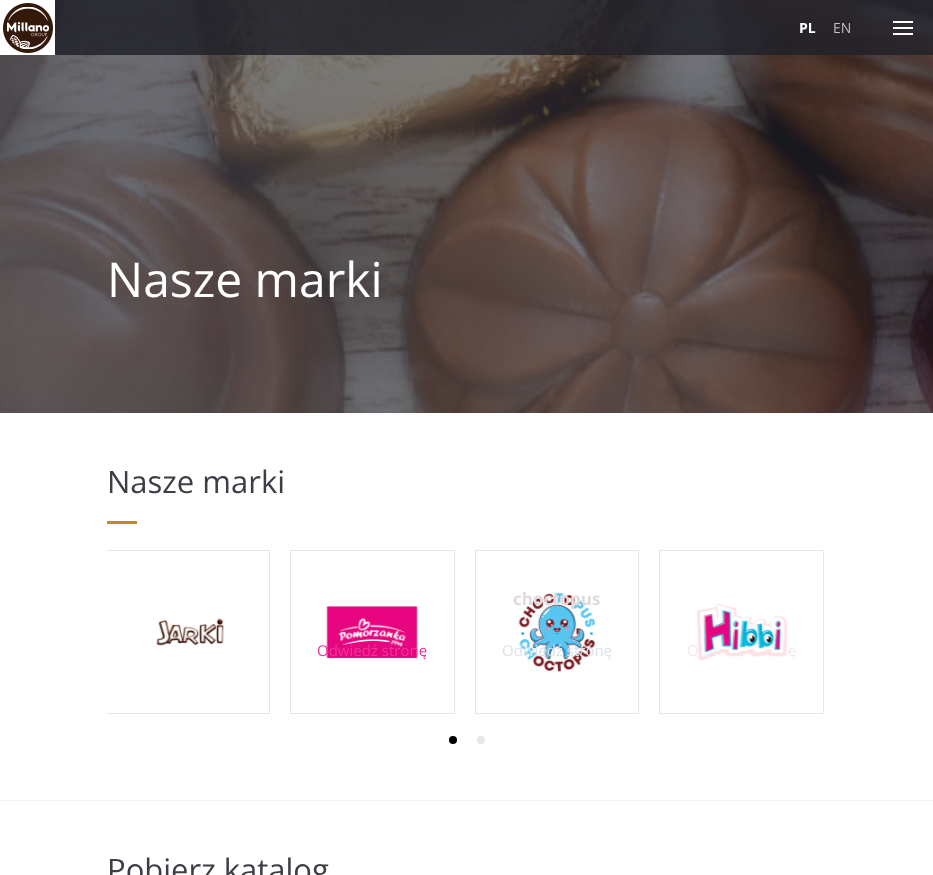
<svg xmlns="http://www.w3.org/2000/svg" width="933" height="875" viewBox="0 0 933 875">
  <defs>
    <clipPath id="clip1"><rect x="107" y="550" width="720" height="189"/></clipPath>
  </defs>
  <rect width="100%" height="100%" fill="#f2f2f2"/>
  <image x="0" y="0" width="933" height="413" href="img2.png"/>
  <rect x="55" y="0" width="878" height="55" fill="#212129" fill-opacity="0.85"/>
  <rect x="0" y="0" width="55" height="55" fill="#ffffff"/>
  <image x="3" y="3" width="50" height="50" href="img1.png"/>
  <text x="799" y="33" font-family="Open Sans" font-size="14" font-weight="bold" fill="#ffffff">PL</text>
  <text x="833" y="33" font-family="Open Sans" font-size="14" fill="#bfbebf">EN</text>
  <rect x="893" y="27" width="20" height="2" fill="#ffffff"/>
  <rect x="893" y="21" width="20" height="2" fill="#ffffff"/>
  <rect x="893" y="33" width="20" height="2" fill="#ffffff"/>
  <text x="107" y="297" font-family="Open Sans" font-size="48" fill="#ffffff">Nasze marki</text>
  <rect x="0" y="413" width="933" height="387" fill="#ffffff"/>
  <text x="107" y="493" font-family="Open Sans" font-size="31" fill="#3c3e46">Nasze marki</text>
  <rect x="107" y="521" width="30" height="3" fill="#ba8931"/>
  <g clip-path="url(#clip1)">
    <rect x="105.5" y="550.5" width="164" height="163" fill="none" stroke="#e6e6e6"/>
  </g>
  <image x="156" y="618" width="68" height="28" href="img3.png"/>
  <rect x="290.5" y="550.5" width="164" height="163" fill="none" stroke="#e6e6e6"/>
  <image x="326" y="606" width="92" height="53" href="img4.png"/>
  <text x="317" y="656" font-family="Open Sans" font-size="15" fill="#eb3799">Odwiedź stronę</text>
  <rect x="475.5" y="550.5" width="163" height="163" fill="none" stroke="#e6e6e6"/>
  <image x="515" y="592" width="80" height="80" href="img5.png"/>
  <text x="513" y="605" font-family="Open Sans" font-size="17" font-weight="bold" fill="#e2d9dc">choctopus</text>
  <text x="502" y="656" font-family="Open Sans" font-size="15" fill="#d9e4ec">Odwiedź stronę</text>
  <rect x="659.5" y="550.5" width="164" height="163" fill="none" stroke="#e6e6e6"/>
  <image x="696" y="603" width="92" height="58" href="img6.png"/>
  <text x="687" y="656" font-family="Open Sans" font-size="15" fill="#efe8f0">O</text>
  <text x="788" y="656" font-family="Open Sans" font-size="15" fill="#efe8f0">ę</text>
  <circle cx="453" cy="740" r="4" fill="#000000"/>
  <circle cx="481" cy="740" r="4" fill="#e6e6e6"/>
  <rect x="0" y="801" width="933" height="74" fill="#ffffff"/>
  <text x="107" y="881" font-family="Open Sans" font-size="31" fill="#3c3e46">Pobierz katalog</text>
</svg>
